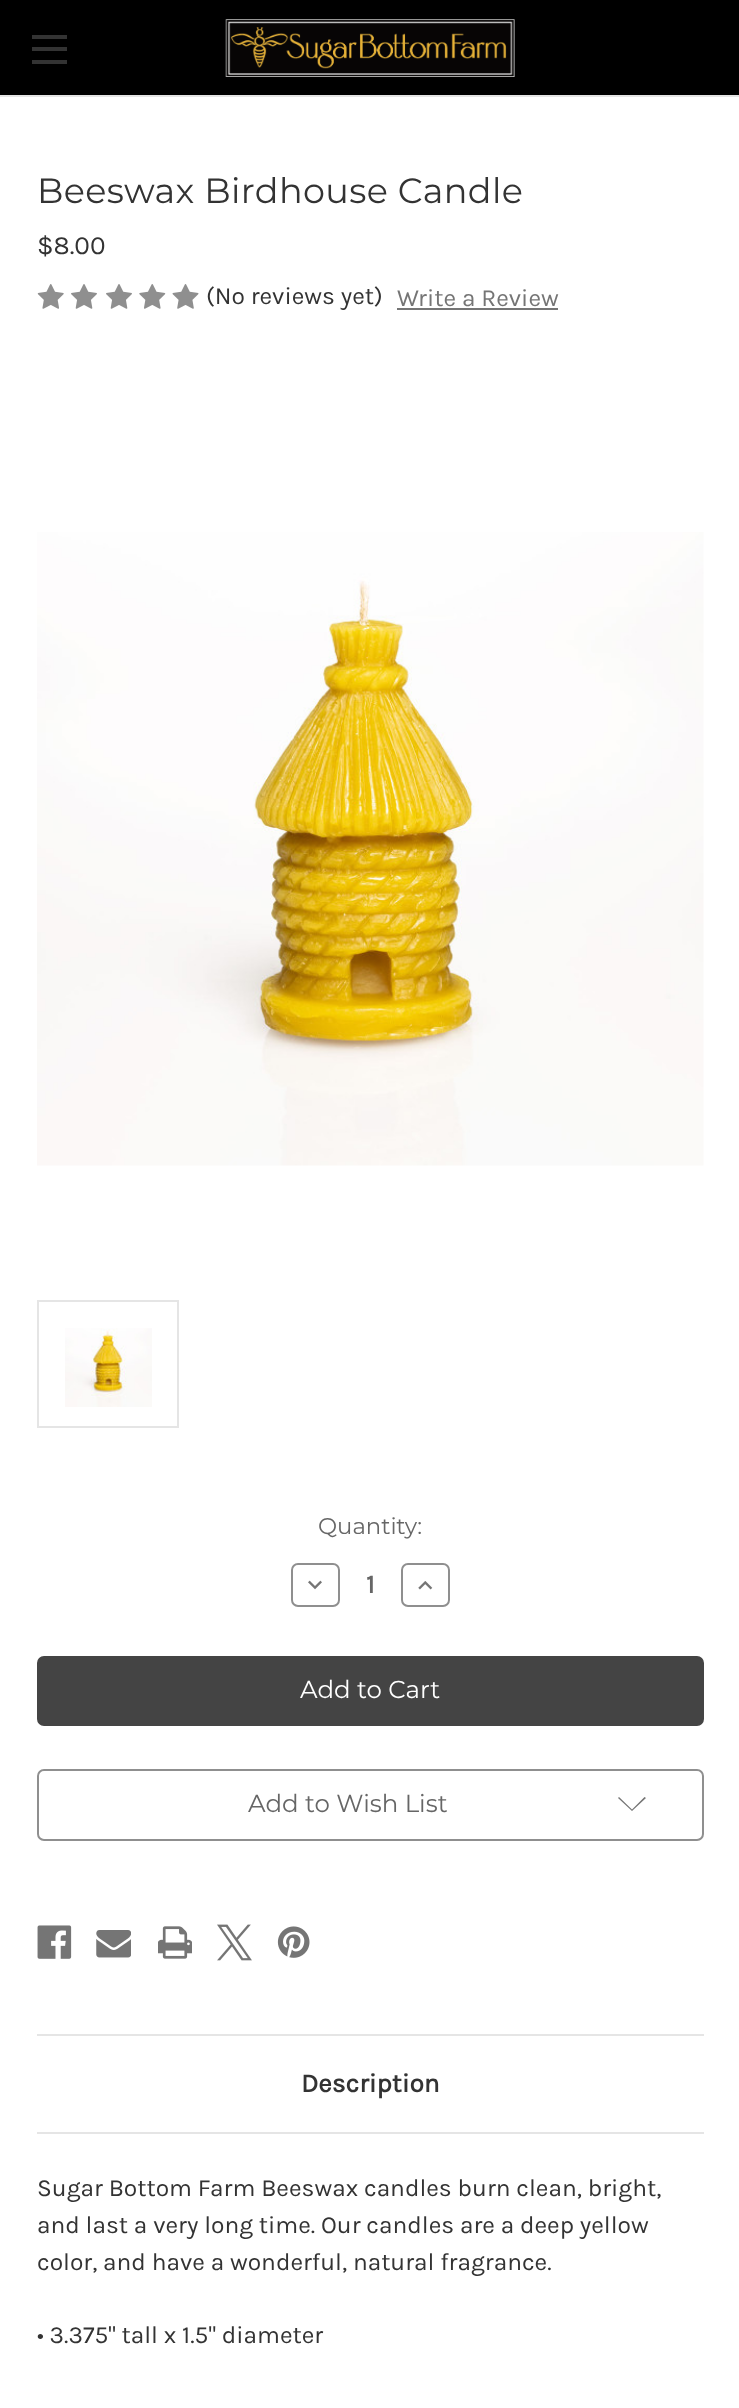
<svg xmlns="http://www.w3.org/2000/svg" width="739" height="2408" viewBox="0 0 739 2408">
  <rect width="100%" height="100%" fill="#ffffff"/>
  <rect x="0" y="0" width="739" height="95" fill="#000000"/>
  <rect x="0" y="95" width="739" height="2" fill="#e5e5e5"/>
  <rect x="32" y="47" width="35" height="4" fill="#333333"/>
  <rect x="32" y="35" width="35" height="4" fill="#333333"/>
  <rect x="32" y="60" width="35" height="4" fill="#333333"/>
  <image x="225" y="19" width="290" height="58" href="img1.png"/>
  <text x="37" y="203" font-family="Montserrat" font-size="35" letter-spacing="0.4" fill="#333333">Beeswax Birdhouse Candle</text>
  <text x="37" y="254" font-family="Karla" font-size="26.25" fill="#333333">$8.00</text>
  <image x="37" y="284" width="27" height="25" href="img2.png"/>
  <image x="71" y="284" width="26" height="25" href="img3.png"/>
  <image x="106" y="284" width="26" height="25" href="img3.png"/>
  <image x="139" y="284" width="27" height="25" href="img4.png"/>
  <image x="172" y="284" width="27" height="25" href="img5.png"/>
  <text x="206" y="304" font-family="Karla" font-size="24.5" fill="#333333">(No reviews yet)</text>
  <text x="397" y="306" font-family="Karla" font-size="24.5" fill="#757575">Write a Review</text>
  <rect x="397" y="308" width="161" height="2" fill="#757575"/>
  <image x="37" y="532" width="667" height="634" href="img6.png"/>
  <rect x="38" y="1301" width="140" height="126" fill="none" stroke="#e5e5e5" stroke-width="2"/>
  <image x="65" y="1328" width="87" height="79" href="img7.png"/>
  <text x="318" y="1534" font-family="Montserrat" font-size="22.75" fill="#666666">Quantity:</text>
  <rect x="292" y="1564" width="47" height="42" rx="6" fill="none" stroke="#8f8f8f" stroke-width="2"/>
  <image x="308" y="1580" width="14" height="10" href="img8.png"/>
  <text x="366" y="1593" font-family="Karla" font-size="26.25" font-weight="bold" fill="#666666">1</text>
  <rect x="402" y="1564" width="47" height="42" rx="6" fill="none" stroke="#8f8f8f" stroke-width="2"/>
  <image x="418" y="1581" width="15" height="9" href="img9.png"/>
  <rect x="38" y="1657" width="665" height="68" rx="6" fill="#444444" stroke="#444444" stroke-width="2"/>
  <text x="300" y="1698" font-family="Montserrat" font-size="24.5" fill="#ffffff">Add to Cart</text>
  <rect x="38" y="1770" width="665" height="70" rx="6" fill="none" stroke="#8f8f8f" stroke-width="2"/>
  <text x="248" y="1812" font-family="Montserrat" font-size="24.5" fill="#666666">Add to Wish List</text>
  <path d="M632 1809.5L644.5 1797L646 1798L632 1811L618 1798L619 1797Z" fill="#757575" fill-rule="evenodd"/>
  <image x="37" y="1925" width="35" height="34" href="img10.png"/>
  <image x="96" y="1930" width="35" height="28" href="img11.png"/>
  <image x="158" y="1926" width="34" height="33" href="img12.png"/>
  <image x="217" y="1924" width="35" height="37" href="img13.png"/>
  <image x="277" y="1926" width="33" height="32" href="img14.png"/>
  <rect x="37" y="2132" width="667" height="2" fill="#e5e5e5"/>
  <rect x="37" y="2034" width="667" height="2" fill="#e5e5e5"/>
  <text x="301" y="2092" font-family="Karla" font-size="26.25" font-weight="bold" fill="#333333">Description</text>
  <text x="37" y="2196" font-family="Karla" font-size="24.5" fill="#333333">Sugar Bottom Farm Beeswax candles burn clean, bright,</text>
  <text x="37" y="2233" font-family="Karla" font-size="24.5" fill="#333333">and last a very long time. Our candles are a deep yellow</text>
  <text x="37" y="2270" font-family="Karla" font-size="24.5" fill="#333333">color, and have a wonderful, natural fragrance.</text>
  <text x="37" y="2343" font-family="Karla" font-size="24.5" fill="#333333">• 3.375" tall x 1.5" diameter</text>
</svg>
